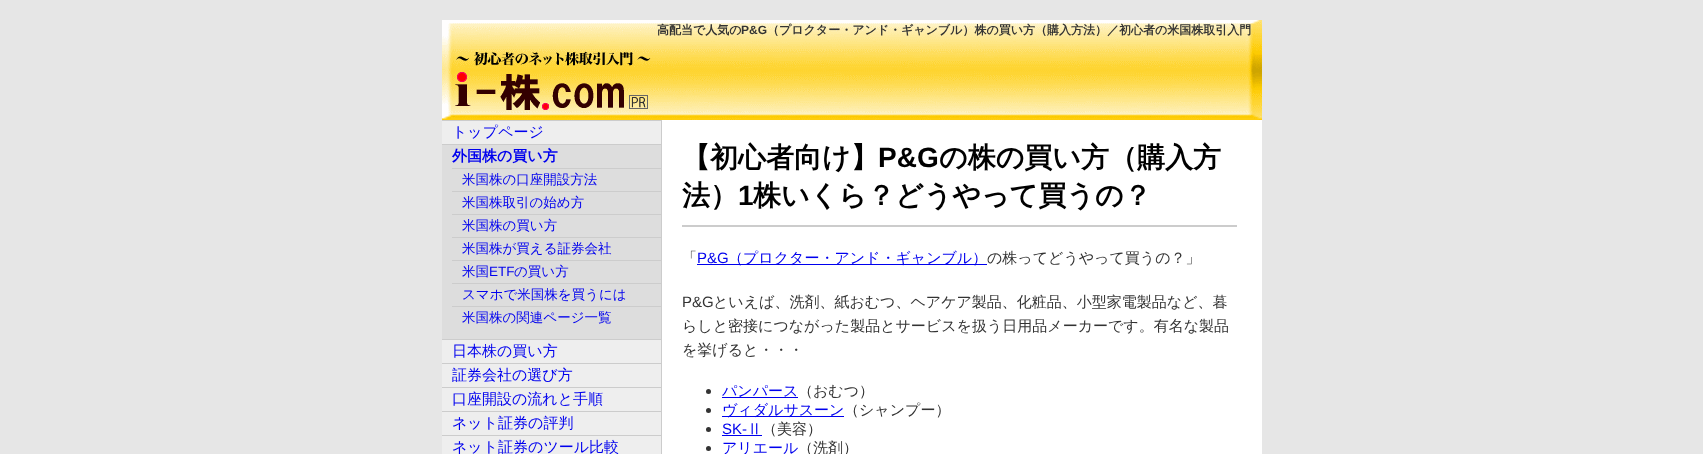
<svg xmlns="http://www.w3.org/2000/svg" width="1703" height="454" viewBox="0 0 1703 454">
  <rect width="100%" height="100%" fill="#e6e6e6"/>
  <rect x="662" y="120" width="600" height="334" fill="#ffffff"/>
  <image x="442" y="20" width="820" height="100" href="img1.png"/>
  <text x="657" y="34" font-family="WenQuanYi Zen Hei" font-size="12" font-weight="bold" fill="#333333">高配当で人気の</text>
  <text x="741" y="34" font-family="Liberation Sans" font-size="12" font-weight="bold" fill="#333333">P&amp;G</text>
  <text x="767" y="34" font-family="WenQuanYi Zen Hei" font-size="12" font-weight="bold" fill="#333333">（プロクター・アンド・ギャンブル）株の買い方（購入方法）／初心者の米国株取引入門</text>
  <image x="629" y="95" width="19" height="14" href="img2.png"/>
  <rect x="442" y="121" width="219" height="333" fill="#eeeeee"/>
  <rect x="661" y="120" width="1" height="334" fill="#cccccc"/>
  <rect x="442" y="120" width="219" height="1" fill="#cccccc"/>
  <text x="452" y="137" font-family="WenQuanYi Zen Hei" font-size="15" font-weight="500" fill="#0000ee">トップページ</text>
  <rect x="442" y="145" width="219" height="194" fill="#dddddd"/>
  <rect x="442" y="144" width="219" height="1" fill="#cccccc"/>
  <text x="452" y="161" font-family="WenQuanYi Zen Hei" font-size="15" font-weight="bold" fill="#0000ee">外国株の買い方</text>
  <rect x="452" y="168" width="209" height="1" fill="#cccccc"/>
  <text x="462" y="184" font-family="WenQuanYi Zen Hei" font-size="13.5" font-weight="500" fill="#0000ee">米国株の口座開設方法</text>
  <rect x="452" y="191" width="209" height="1" fill="#cccccc"/>
  <text x="462" y="207" font-family="WenQuanYi Zen Hei" font-size="13.5" font-weight="500" fill="#0000ee">米国株取引の始め方</text>
  <rect x="452" y="214" width="209" height="1" fill="#cccccc"/>
  <text x="462" y="230" font-family="WenQuanYi Zen Hei" font-size="13.5" font-weight="500" fill="#0000ee">米国株の買い方</text>
  <rect x="452" y="237" width="209" height="1" fill="#cccccc"/>
  <text x="462" y="253" font-family="WenQuanYi Zen Hei" font-size="13.5" font-weight="500" fill="#0000ee">米国株が買える証券会社</text>
  <rect x="452" y="260" width="209" height="1" fill="#cccccc"/>
  <text x="462" y="276" font-family="WenQuanYi Zen Hei" font-size="13.5" font-weight="500" fill="#0000ee">米国</text>
  <text x="489" y="276" font-family="Liberation Sans" font-size="13.5" fill="#0000ee">ETF</text>
  <text x="514" y="276" font-family="WenQuanYi Zen Hei" font-size="13.5" font-weight="500" fill="#0000ee">の買い方</text>
  <rect x="452" y="283" width="209" height="1" fill="#cccccc"/>
  <text x="462" y="299" font-family="WenQuanYi Zen Hei" font-size="13.5" font-weight="500" fill="#0000ee">スマホで米国株を買うには</text>
  <rect x="452" y="306" width="209" height="1" fill="#cccccc"/>
  <text x="462" y="322" font-family="WenQuanYi Zen Hei" font-size="13.5" font-weight="500" fill="#0000ee">米国株の関連ページ一覧</text>
  <rect x="442" y="339" width="219" height="1" fill="#cccccc"/>
  <text x="452" y="356" font-family="WenQuanYi Zen Hei" font-size="15" font-weight="500" fill="#0000ee">日本株の買い方</text>
  <rect x="442" y="363" width="219" height="1" fill="#cccccc"/>
  <text x="452" y="380" font-family="WenQuanYi Zen Hei" font-size="15" font-weight="500" fill="#0000ee">証券会社の選び方</text>
  <rect x="442" y="387" width="219" height="1" fill="#cccccc"/>
  <text x="452" y="404" font-family="WenQuanYi Zen Hei" font-size="15" font-weight="500" fill="#0000ee">口座開設の流れと手順</text>
  <rect x="442" y="411" width="219" height="1" fill="#cccccc"/>
  <text x="452" y="428" font-family="WenQuanYi Zen Hei" font-size="15" font-weight="500" fill="#0000ee">ネット証券の評判</text>
  <rect x="442" y="435" width="219" height="1" fill="#cccccc"/>
  <text x="452" y="452" font-family="WenQuanYi Zen Hei" font-size="15" font-weight="500" fill="#0000ee">ネット証券のツール比較</text>
  <rect x="682" y="225" width="555" height="2" fill="#cccccc"/>
  <text x="682" y="167" font-family="WenQuanYi Zen Hei" font-size="28" font-weight="bold" fill="#000000">【初心者向け】</text>
  <text x="878" y="167" font-family="Liberation Sans" font-size="28" font-weight="bold" fill="#000000">P&amp;G</text>
  <text x="939" y="167" font-family="WenQuanYi Zen Hei" font-size="28" font-weight="bold" fill="#000000">の株の買い方（購入方</text>
  <text x="682" y="205" font-family="WenQuanYi Zen Hei" font-size="28" font-weight="bold" fill="#000000">法）</text>
  <text x="738" y="205" font-family="Liberation Sans" font-size="28" font-weight="bold" fill="#000000">1</text>
  <text x="753" y="205" font-family="WenQuanYi Zen Hei" font-size="28" font-weight="bold" fill="#000000">株いくら？どうやって買うの？</text>
  <text x="682" y="263" font-family="WenQuanYi Zen Hei" font-size="15" font-weight="500" fill="#333333">「</text>
  <text x="697" y="263" font-family="Liberation Sans" font-size="15" fill="#0000ee">P&amp;G</text>
  <rect x="697" y="264" width="290" height="1" fill="#0000ee"/>
  <text x="728" y="263" font-family="WenQuanYi Zen Hei" font-size="15" font-weight="500" fill="#0000ee">（プロクター・アンド・ギャンブル）</text>
  <text x="987" y="263" font-family="WenQuanYi Zen Hei" font-size="15" font-weight="500" fill="#333333">の株ってどうやって買うの？」</text>
  <text x="682" y="307" font-family="Liberation Sans" font-size="15" fill="#333333">P&amp;G</text>
  <text x="713" y="307" font-family="WenQuanYi Zen Hei" font-size="15" font-weight="500" fill="#333333">といえば、洗剤、紙おむつ、ヘアケア製品、化粧品、小型家電製品など、暮</text>
  <text x="682" y="331" font-family="WenQuanYi Zen Hei" font-size="15" font-weight="500" fill="#333333">らしと密接につながった製品とサービスを扱う日用品メーカーです。有名な製品</text>
  <text x="682" y="355" font-family="WenQuanYi Zen Hei" font-size="15" font-weight="500" fill="#333333">を挙げると・・・</text>
  <circle cx="708.5" cy="391.5" r="2.5" fill="#333333"/>
  <rect x="722" y="397" width="76" height="1" fill="#0000ee"/>
  <text x="722" y="396" font-family="WenQuanYi Zen Hei" font-size="15" font-weight="500" fill="#0000ee">パンパース</text>
  <text x="798" y="396" font-family="WenQuanYi Zen Hei" font-size="15" font-weight="500" fill="#333333">（おむつ）</text>
  <circle cx="708.5" cy="410.5" r="2.5" fill="#333333"/>
  <rect x="722" y="416" width="122" height="1" fill="#0000ee"/>
  <text x="722" y="415" font-family="WenQuanYi Zen Hei" font-size="15" font-weight="500" fill="#0000ee">ヴィダルサスーン</text>
  <text x="844" y="415" font-family="WenQuanYi Zen Hei" font-size="15" font-weight="500" fill="#333333">（シャンプー）</text>
  <circle cx="708.5" cy="429.5" r="2.5" fill="#333333"/>
  <text x="722" y="434" font-family="Liberation Sans" font-size="15" fill="#0000ee">SK-</text>
  <rect x="722" y="435" width="40" height="1" fill="#0000ee"/>
  <text x="747" y="434" font-family="WenQuanYi Zen Hei" font-size="15" font-weight="500" fill="#0000ee">Ⅱ</text>
  <text x="762" y="434" font-family="WenQuanYi Zen Hei" font-size="15" font-weight="500" fill="#333333">（美容）</text>
  <circle cx="708.5" cy="448.5" r="2.5" fill="#333333"/>
  <text x="722" y="453" font-family="WenQuanYi Zen Hei" font-size="15" font-weight="500" fill="#0000ee">アリエール</text>
  <text x="798" y="453" font-family="WenQuanYi Zen Hei" font-size="15" font-weight="500" fill="#333333">（洗剤）</text>
</svg>
